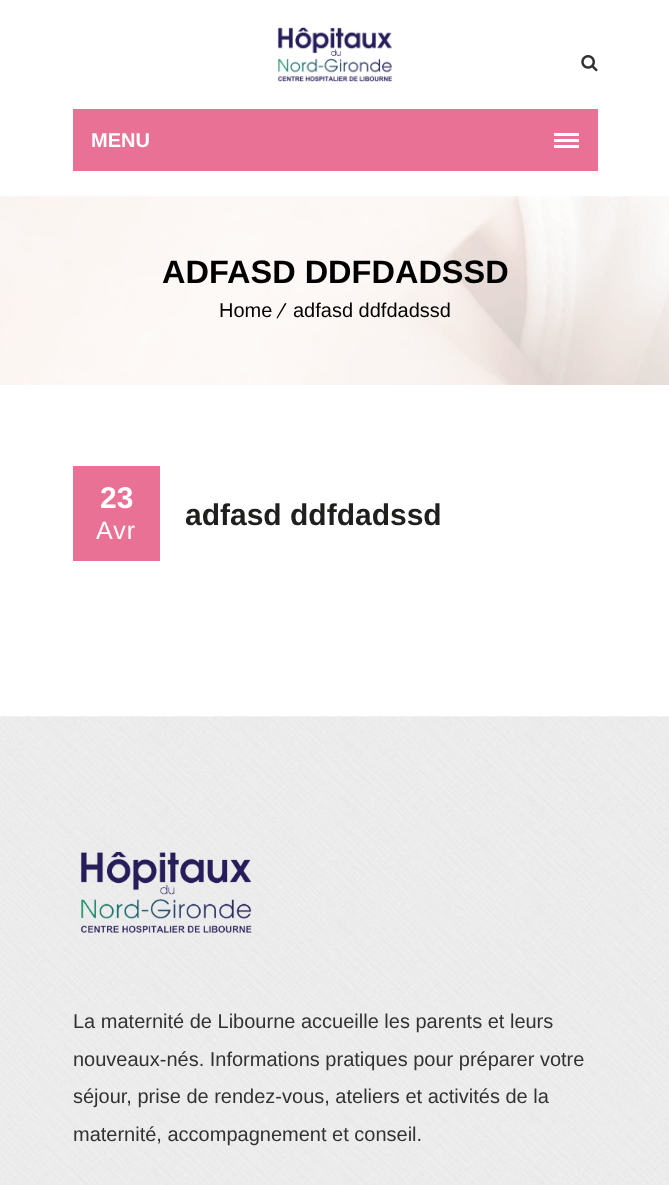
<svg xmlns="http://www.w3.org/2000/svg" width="669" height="1185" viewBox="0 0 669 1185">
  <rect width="100%" height="100%" fill="#ffffff"/>
  <image x="277" y="27" width="116" height="55" href="img1.png"/>
  <image x="581" y="55" width="17" height="17" href="img2.png"/>
  <rect x="73" y="109" width="525" height="62" fill="#e97195"/>
  <text x="91" y="147" font-family="Liberation Sans" font-size="20" font-weight="bold" fill="#ffffff">MENU</text>
  <rect x="554" y="139" width="25" height="3" fill="#ffffff"/>
  <rect x="554" y="133" width="25" height="3" fill="#ffffff"/>
  <rect x="554" y="145" width="25" height="3" fill="#ffffff"/>
  <image x="0" y="196" width="669" height="189" href="img3.png"/>
  <text x="162" y="283" font-family="Liberation Sans" font-size="32.5" font-weight="bold" fill="#000000">ADFASD DDFDADSSD</text>
  <text x="219" y="317" font-family="Liberation Sans" font-size="20" fill="#000000">Home</text>
  <path d="M285 303L286.5 303.5L277.5 318.5L276.5 318Z" fill="#000000"/>
  <text x="293" y="317" font-family="Liberation Sans" font-size="20" fill="#000000">adfasd ddfdadssd</text>
  <rect x="73" y="466" width="87" height="95" fill="#e97195"/>
  <text x="100" y="508" font-family="Liberation Sans" font-size="30" font-weight="bold" fill="#ffffff">23</text>
  <text x="96" y="539" font-family="Liberation Sans" font-size="25" letter-spacing="1" fill="#ffffff">Avr</text>
  <text x="185" y="525" font-family="Liberation Sans" font-size="30" font-weight="bold" fill="#1f1f1e">adfasd ddfdadssd</text>
  <image x="0" y="716" width="669" height="469" href="img4.png"/>
  <image x="80" y="851" width="172" height="83" href="img5.png"/>
  <text x="73" y="1028" font-family="Liberation Sans" font-size="20" fill="#323232">La maternité de Libourne accueille les parents et leurs</text>
  <text x="73" y="1066" font-family="Liberation Sans" font-size="20" fill="#323232">nouveaux-nés. Informations pratiques pour préparer votre</text>
  <text x="73" y="1103" font-family="Liberation Sans" font-size="20" fill="#323232">séjour, prise de rendez-vous, ateliers et activités de la</text>
  <text x="73" y="1141" font-family="Liberation Sans" font-size="20" fill="#323232">maternité, accompagnement et conseil.</text>
</svg>
